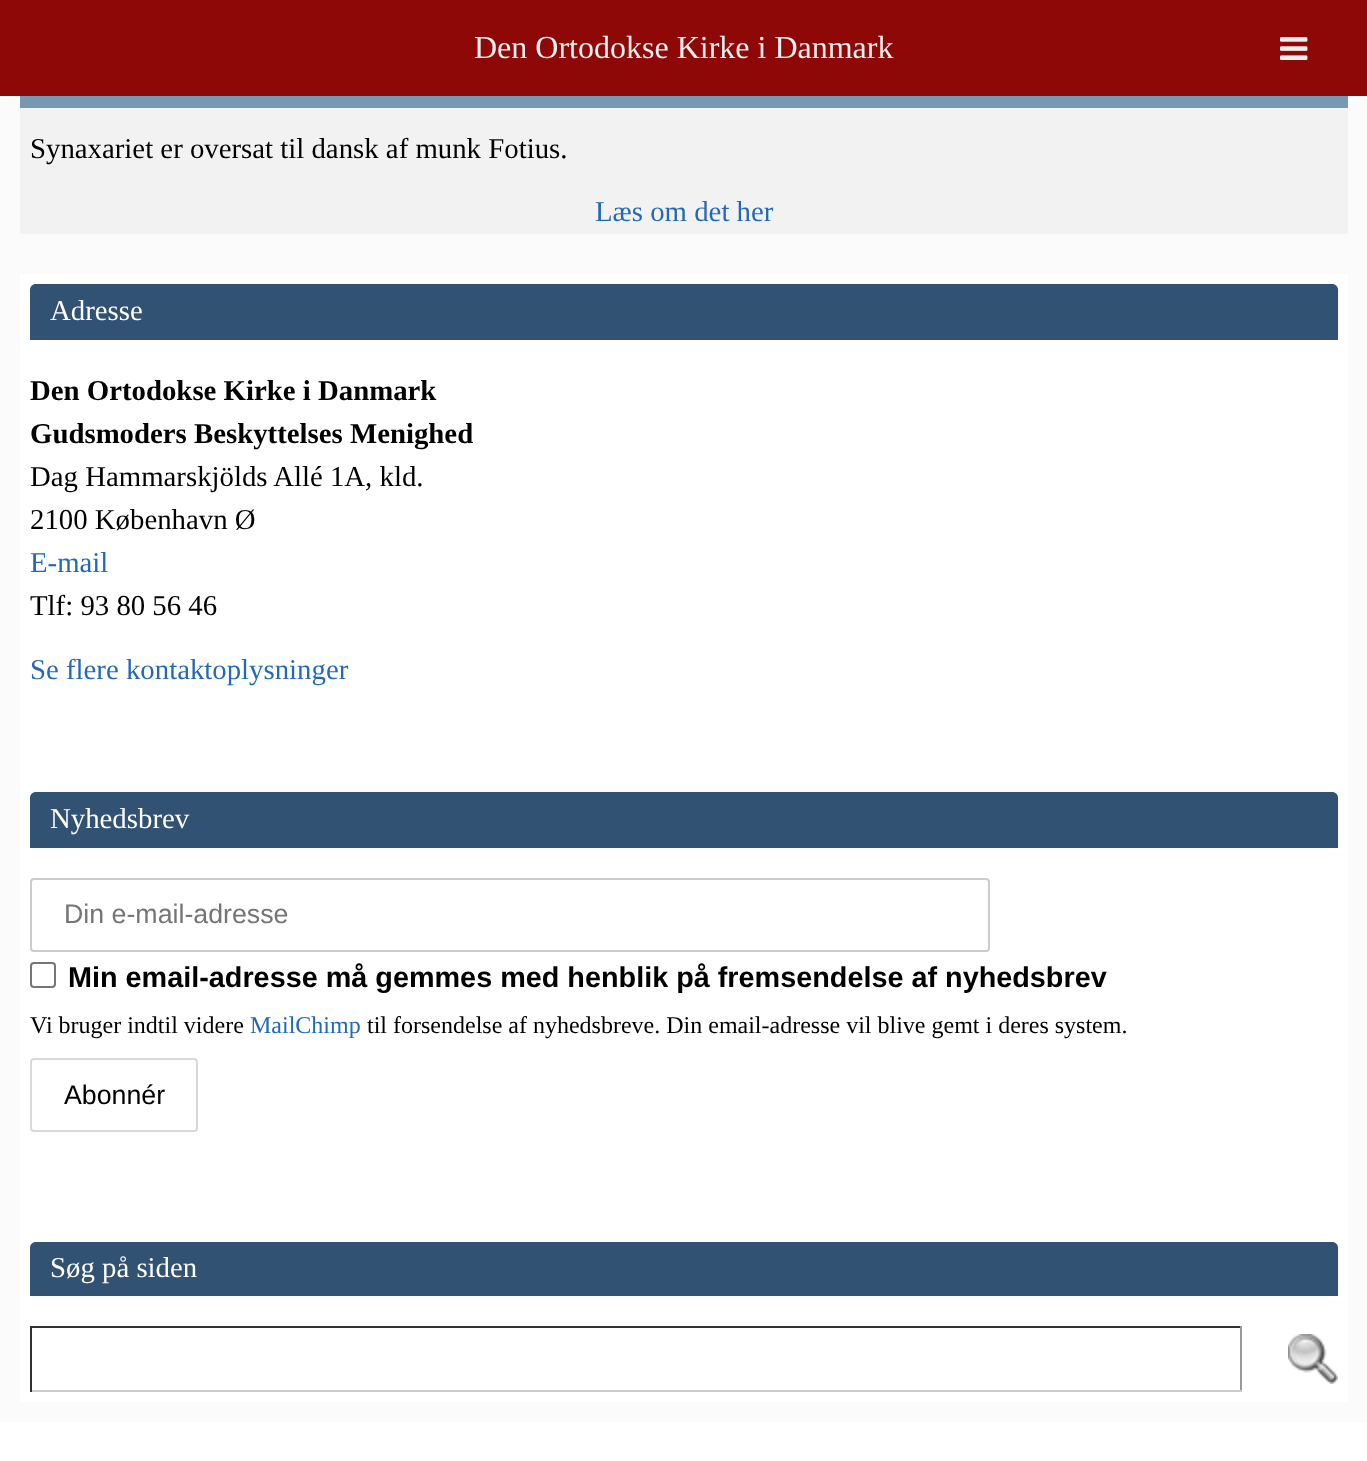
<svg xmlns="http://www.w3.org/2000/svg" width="1367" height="1461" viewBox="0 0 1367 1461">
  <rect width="100%" height="100%" fill="#ffffff"/>
  <rect x="0" y="0" width="1367" height="96" fill="#8e0808"/>
  <text x="474" y="58" font-family="Liberation Serif" font-size="32" fill="#eeeeee">Den Ortodokse Kirke i Danmark</text>
  <image x="1280" y="37" width="28" height="23" href="img1.png"/>
  <rect x="0" y="96" width="1367" height="1326" fill="#fbfbfb"/>
  <rect x="20" y="108" width="1328" height="126" fill="#f2f2f2"/>
  <rect x="20" y="96" width="1328" height="12" fill="#7798b2"/>
  <text x="30" y="158" font-family="Liberation Serif" font-size="28.8" fill="#000000">Synaxariet er oversat til dansk af munk Fotius.</text>
  <text x="595" y="221" font-family="Liberation Serif" font-size="28.8" fill="#2469b7">Læs om det her</text>
  <rect x="20" y="274" width="1328" height="1128" fill="#ffffff"/>
  <path d="M36 284H1332C1335.5 284 1338 286.5 1338 290V340H30V290C30 286.5 32.5 284 36 284Z" fill="#325274"/>
  <text x="50" y="320" font-family="Liberation Serif" font-size="28.8" fill="#ffffff">Adresse</text>
  <text x="30" y="400" font-family="Liberation Serif" font-size="28.8" font-weight="bold" fill="#000000">Den Ortodokse Kirke i Danmark</text>
  <text x="30" y="443" font-family="Liberation Serif" font-size="28.8" font-weight="bold" fill="#000000">Gudsmoders Beskyttelses Menighed</text>
  <text x="30" y="486" font-family="Liberation Serif" font-size="28.8" fill="#000000">Dag Hammarskjölds Allé 1A, kld.</text>
  <text x="30" y="529" font-family="Liberation Serif" font-size="28.8" fill="#000000">2100 København Ø</text>
  <text x="30" y="572" font-family="Liberation Serif" font-size="28.8" fill="#2469b7">E-mail</text>
  <text x="30" y="615" font-family="Liberation Serif" font-size="28.8" fill="#000000">Tlf: 93 80 56 46</text>
  <text x="30" y="679" font-family="Liberation Serif" font-size="28.8" fill="#2469b7">Se flere kontaktoplysninger</text>
  <path d="M36 792H1332C1335.5 792 1338 794.5 1338 798V848H30V798C30 794.5 32.5 792 36 792Z" fill="#325274"/>
  <text x="50" y="828" font-family="Liberation Serif" font-size="28.8" fill="#ffffff">Nyhedsbrev</text>
  <rect x="31" y="879" width="958" height="72" rx="3" fill="none" stroke="#cccccc" stroke-width="2"/>
  <text x="64" y="923" font-family="Liberation Sans" font-size="26.75" fill="#757575">Din e-mail-adresse</text>
  <rect x="31" y="963" width="24" height="24" rx="3" fill="none" stroke="#767676" stroke-width="2"/>
  <text x="68" y="987" font-family="Liberation Sans" font-size="28.8" font-weight="bold" fill="#000000">Min email-adresse må gemmes med henblik på fremsendelse af nyhedsbrev</text>
  <text x="30" y="1033" font-family="Liberation Serif" font-size="24" fill="#000000">Vi bruger indtil videre</text>
  <text x="250" y="1033" font-family="Liberation Serif" font-size="24" fill="#2469b7">MailChimp</text>
  <text x="367" y="1033" font-family="Liberation Serif" font-size="24" fill="#000000">til forsendelse af nyhedsbreve. Din email-adresse vil blive gemt i deres system.</text>
  <rect x="31" y="1059" width="166" height="72" rx="3" fill="none" stroke="#d9d9d9" stroke-width="2"/>
  <text x="64" y="1104" font-family="Liberation Sans" font-size="26.75" fill="#000000">Abonnér</text>
  <path d="M36 1242H1332C1335.5 1242 1338 1244.5 1338 1248V1296H30V1248C30 1244.5 32.5 1242 36 1242Z" fill="#325274"/>
  <text x="50" y="1277" font-family="Liberation Serif" font-size="28.8" fill="#ffffff">Søg på siden</text>
  <rect x="30" y="1326" width="1212" height="2" fill="#333333"/>
  <rect x="1240" y="1326" width="2" height="66" fill="#999999"/>
  <rect x="30" y="1390" width="1212" height="2" fill="#cccccc"/>
  <rect x="30" y="1326" width="2" height="66" fill="#333333"/>
  <image x="1288" y="1334" width="50" height="50" href="img2.png"/>
</svg>
